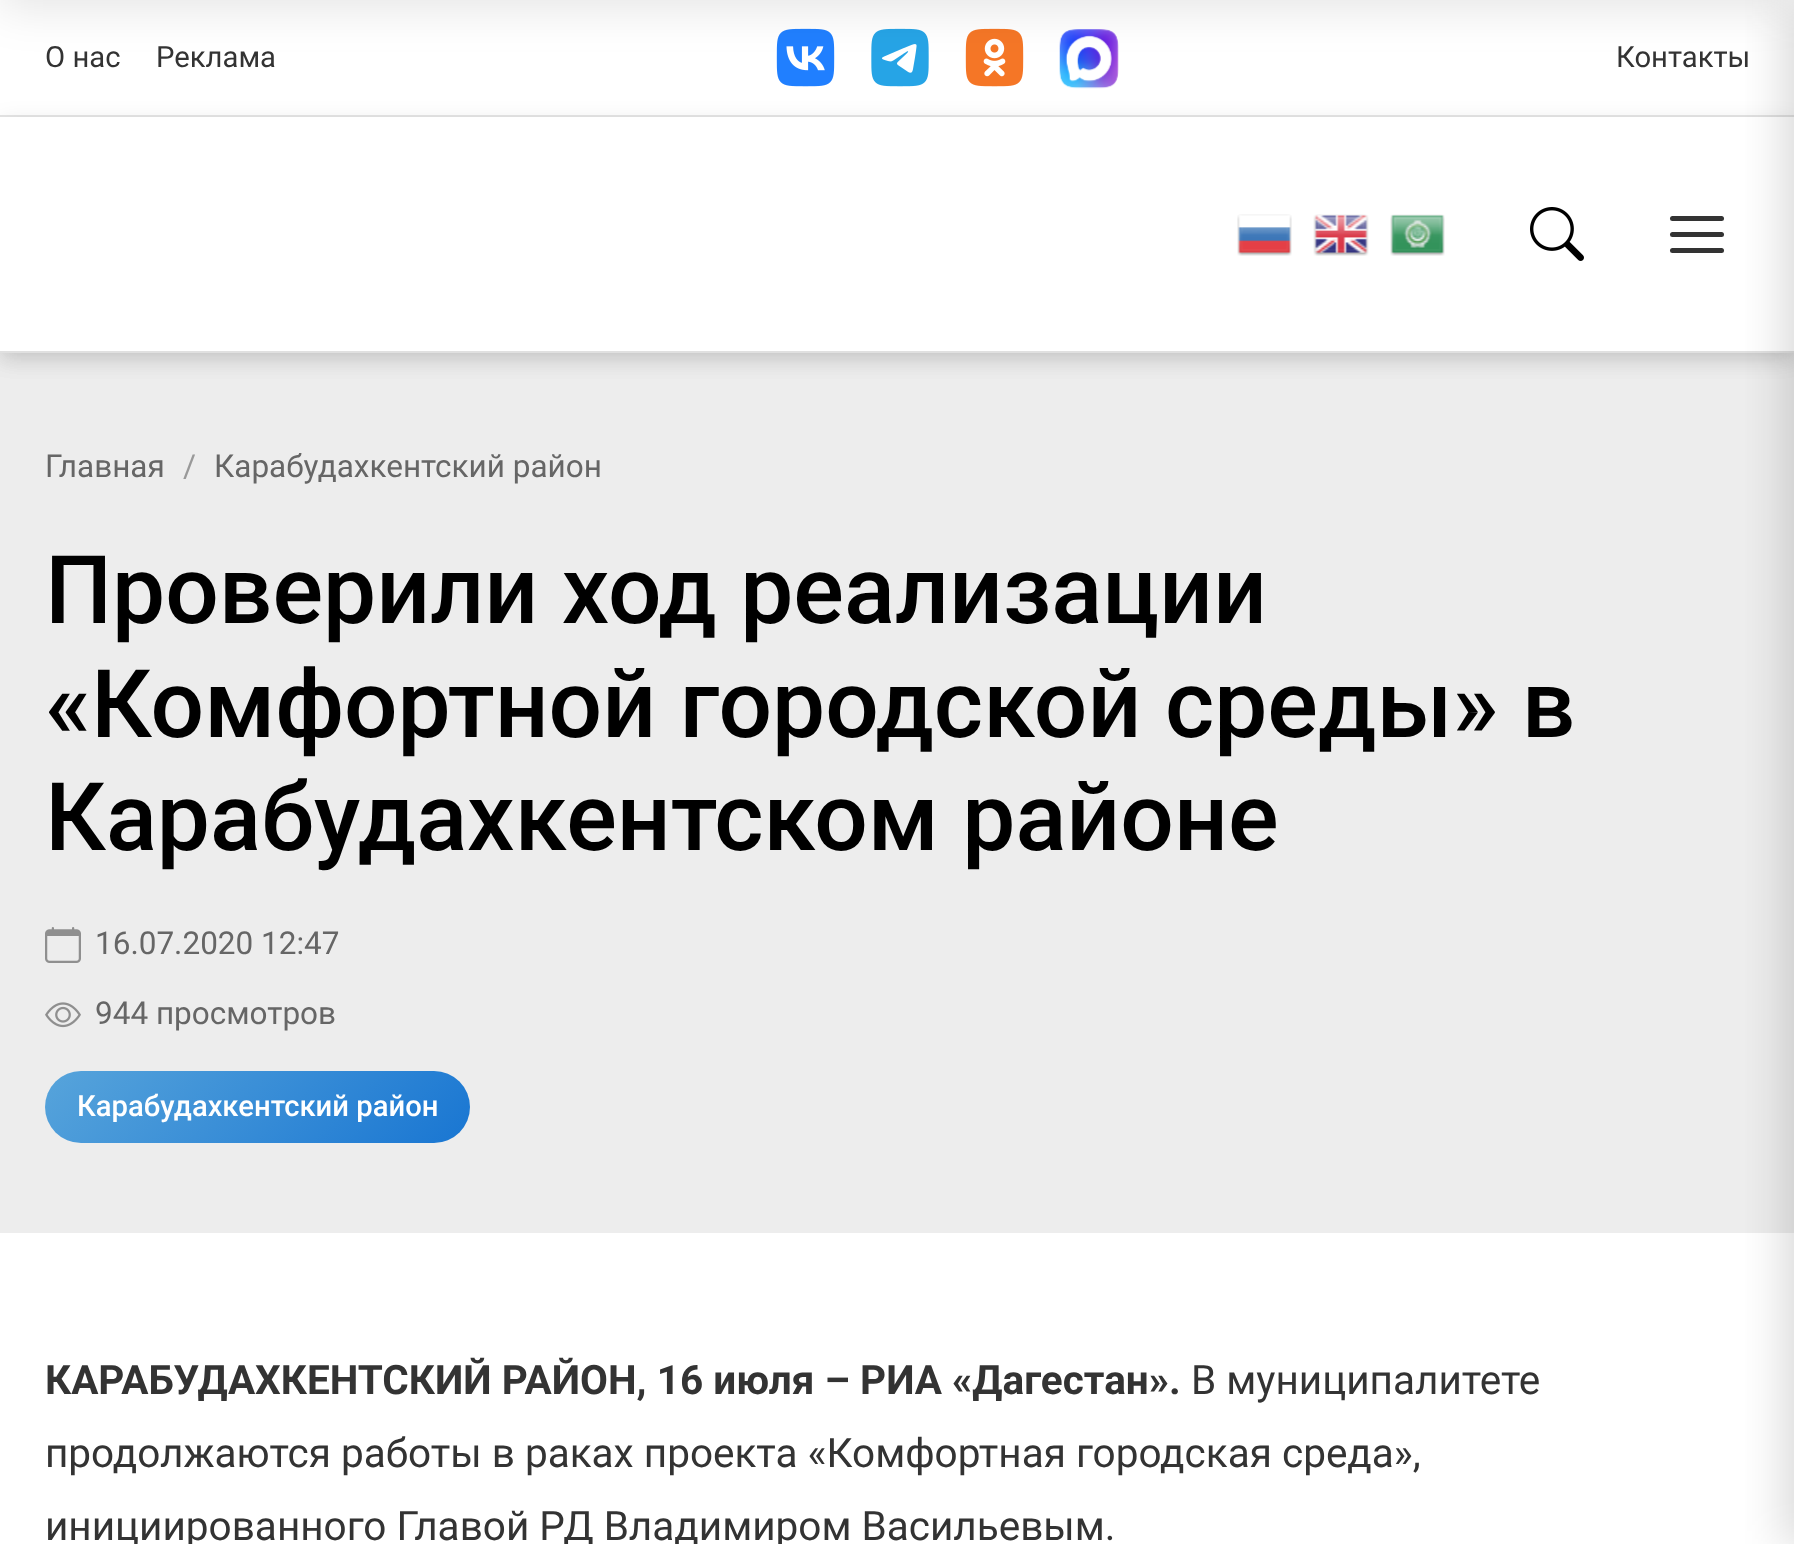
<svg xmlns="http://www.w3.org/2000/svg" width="1794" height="1544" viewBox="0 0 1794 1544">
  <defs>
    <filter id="blur1" x="-50%" y="-200%" width="200%" height="500%"><feGaussianBlur stdDeviation="11"/></filter>
    <filter id="blur2" x="-50%" y="-200%" width="200%" height="500%"><feGaussianBlur stdDeviation="22.5"/></filter>
    <clipPath id="clip1"><path d="M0 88H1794V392H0ZM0 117H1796V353H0Z" clip-rule="evenodd"/></clipPath>
    <linearGradient id="g1" gradientUnits="userSpaceOnUse" x1="133" y1="983" x2="382" y2="1231"><stop offset="0" stop-color="#57a4db"/><stop offset="1" stop-color="#1976d2"/></linearGradient>
  </defs>
  <rect width="100%" height="100%" fill="#ededed"/>
  <rect x="0" y="5" width="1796" height="353" fill="#000000" fill-opacity="0.1" filter="url(#blur1)"/>
  <rect x="0" y="0" width="1794" height="351" fill="#ffffff"/>
  <image x="776" y="28" width="59" height="59" href="img1.png"/>
  <image x="871" y="28" width="58" height="59" href="img2.png"/>
  <image x="965" y="28" width="59" height="59" href="img3.png"/>
  <image x="1059" y="29" width="60" height="60" href="img4.png"/>
  <rect x="0" y="-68" width="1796" height="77" fill="#000000" fill-opacity="0.1" filter="url(#blur2)"/>
  <rect x="0" y="115" width="1794" height="2" fill="#e5e5e5"/>
  <text x="45" y="67" font-family="Roboto" font-size="29.25" fill="#333333">О нас</text>
  <text x="156" y="67" font-family="Roboto" font-size="29.25" fill="#333333">Реклама</text>
  <text x="1616" y="67" font-family="Roboto" font-size="29.25" fill="#333333">Контакты</text>
  <g clip-path="url(#clip1)">
    <rect x="0" y="122" width="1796" height="236" fill="#000000" fill-opacity="0.1" filter="url(#blur1)"/>
  </g>
  <rect x="0" y="351" width="1794" height="2" fill="#e0e0e0"/>
  <rect x="1670" y="216" width="54" height="5" rx="2.5" fill="#333333"/>
  <rect x="1670" y="232" width="54" height="5" rx="2.5" fill="#333333"/>
  <rect x="1670" y="248" width="54" height="5" rx="2.5" fill="#333333"/>
  <rect x="0" y="1233" width="1794" height="311" fill="#ffffff"/>
  <rect x="1784" y="0" width="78" height="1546" fill="#000000" fill-opacity="0.15" filter="url(#blur2)"/>
  <image x="1237" y="214" width="55" height="42" href="img5.png"/>
  <image x="1313" y="214" width="56" height="42" href="img6.png"/>
  <image x="1390" y="214" width="55" height="42" href="img7.png"/>
  <image x="1530" y="207" width="54" height="54" href="img8.png"/>
  <text x="45" y="477" font-family="Roboto" font-size="31.5" fill="#666666">Главная</text>
  <text x="183" y="477" font-family="Roboto" font-size="31.5" fill="#999999">/</text>
  <text x="214" y="477" font-family="Roboto" font-size="31.5" fill="#666666">Карабудахкентский район</text>
  <text x="45" y="623" font-family="Roboto" font-size="94.5" font-weight="500" fill="#000000">Проверили ход реализации</text>
  <text x="45" y="737" font-family="Roboto" font-size="94.5" font-weight="500" fill="#000000">«Комфортной городской среды» в</text>
  <text x="45" y="850" font-family="Roboto" font-size="94.5" font-weight="500" fill="#000000">Карабудахкентском районе</text>
  <image x="45" y="927" width="36" height="36" href="img9.png"/>
  <text x="95" y="954" font-family="Roboto" font-size="31.5" fill="#666666">16.07.2020 12:47</text>
  <image x="45" y="1002" width="36" height="26" href="img10.png"/>
  <text x="95" y="1024" font-family="Roboto" font-size="31.5" fill="#666666">944 просмотров</text>
  <rect x="45" y="1071" width="425" height="72" rx="36" fill="url(#g1)"/>
  <text x="77" y="1116" font-family="Roboto" font-size="29.25" font-weight="500" fill="#ffffff">Карабудахкентский район</text>
  <text x="45" y="1394" font-family="Roboto" font-size="40.5" font-weight="bold" fill="#333333">КАРАБУДАХКЕНТСКИЙ РАЙОН, 16 июля – РИА «Дагестан».</text>
  <text x="1191" y="1394" font-family="Roboto" font-size="40.5" fill="#333333">В муниципалитете</text>
  <text x="45" y="1467" font-family="Roboto" font-size="40.5" fill="#333333">продолжаются работы в раках проекта «Комфортная городская среда»,</text>
  <text x="45" y="1540" font-family="Roboto" font-size="40.5" fill="#333333">инициированного Главой РД Владимиром Васильевым.</text>
</svg>
